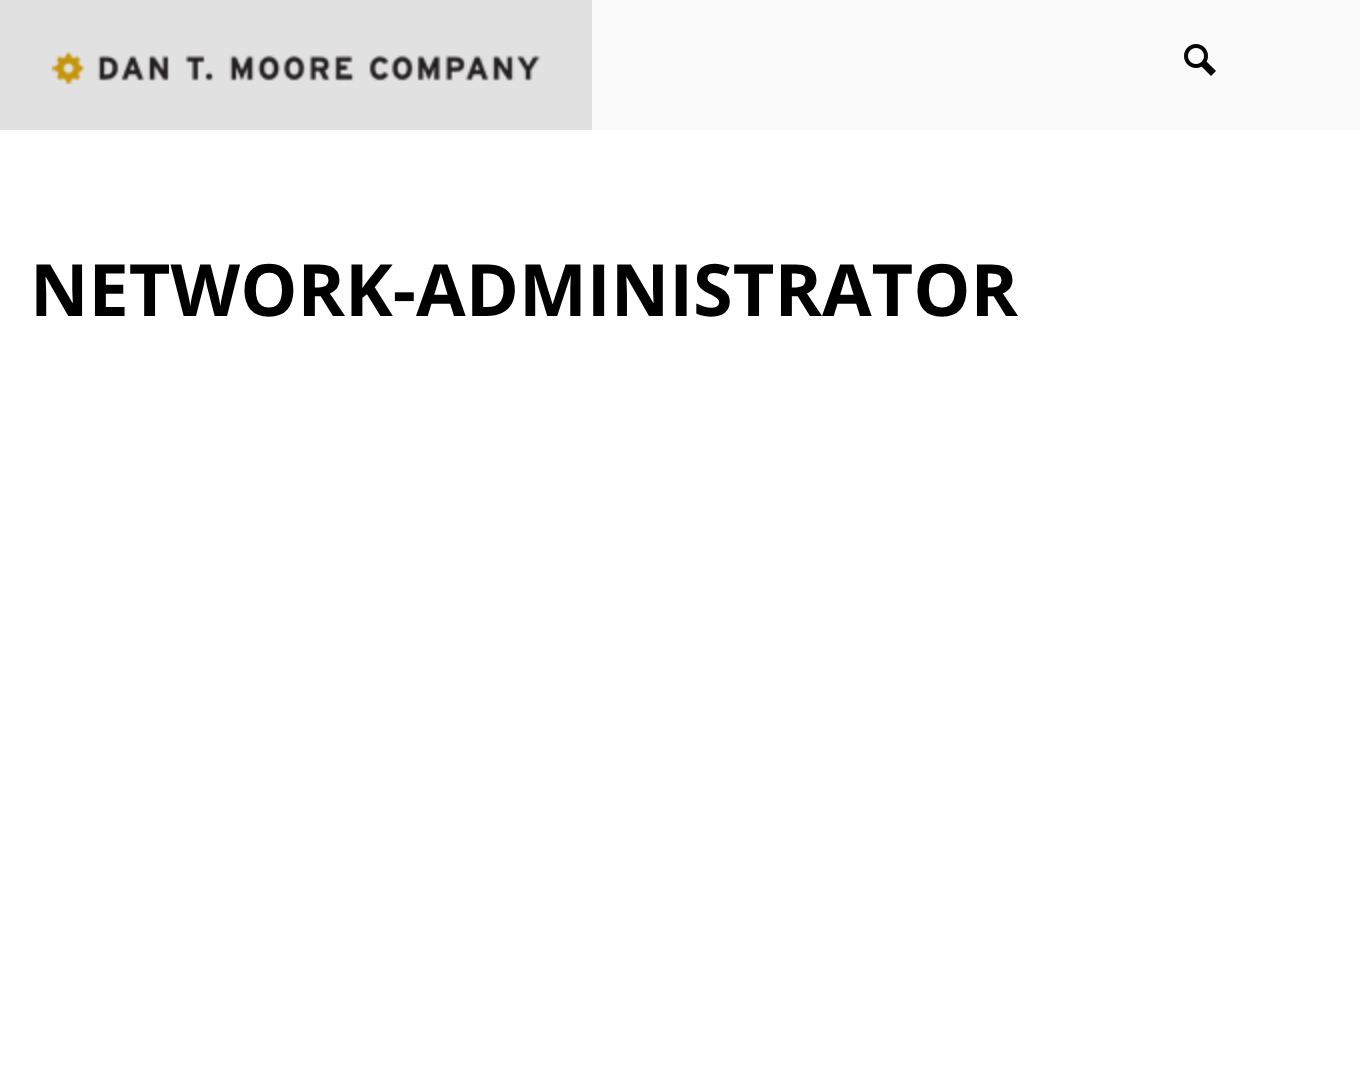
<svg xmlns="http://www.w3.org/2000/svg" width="1360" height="1070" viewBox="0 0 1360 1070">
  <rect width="100%" height="100%" fill="#ffffff"/>
  <rect x="592" y="0" width="768" height="130" fill="#fafafa"/>
  <rect x="0" y="0" width="592" height="130" fill="#e1e1e1"/>
  <image x="51" y="51" width="490" height="34" href="img1.png"/>
  <image x="1184" y="44" width="32" height="32" href="img2.png"/>
  <text x="30" y="316" font-family="Open Sans" font-size="72" font-weight="bold" fill="#000000">NETWORK-ADMINISTRATOR</text>
</svg>
